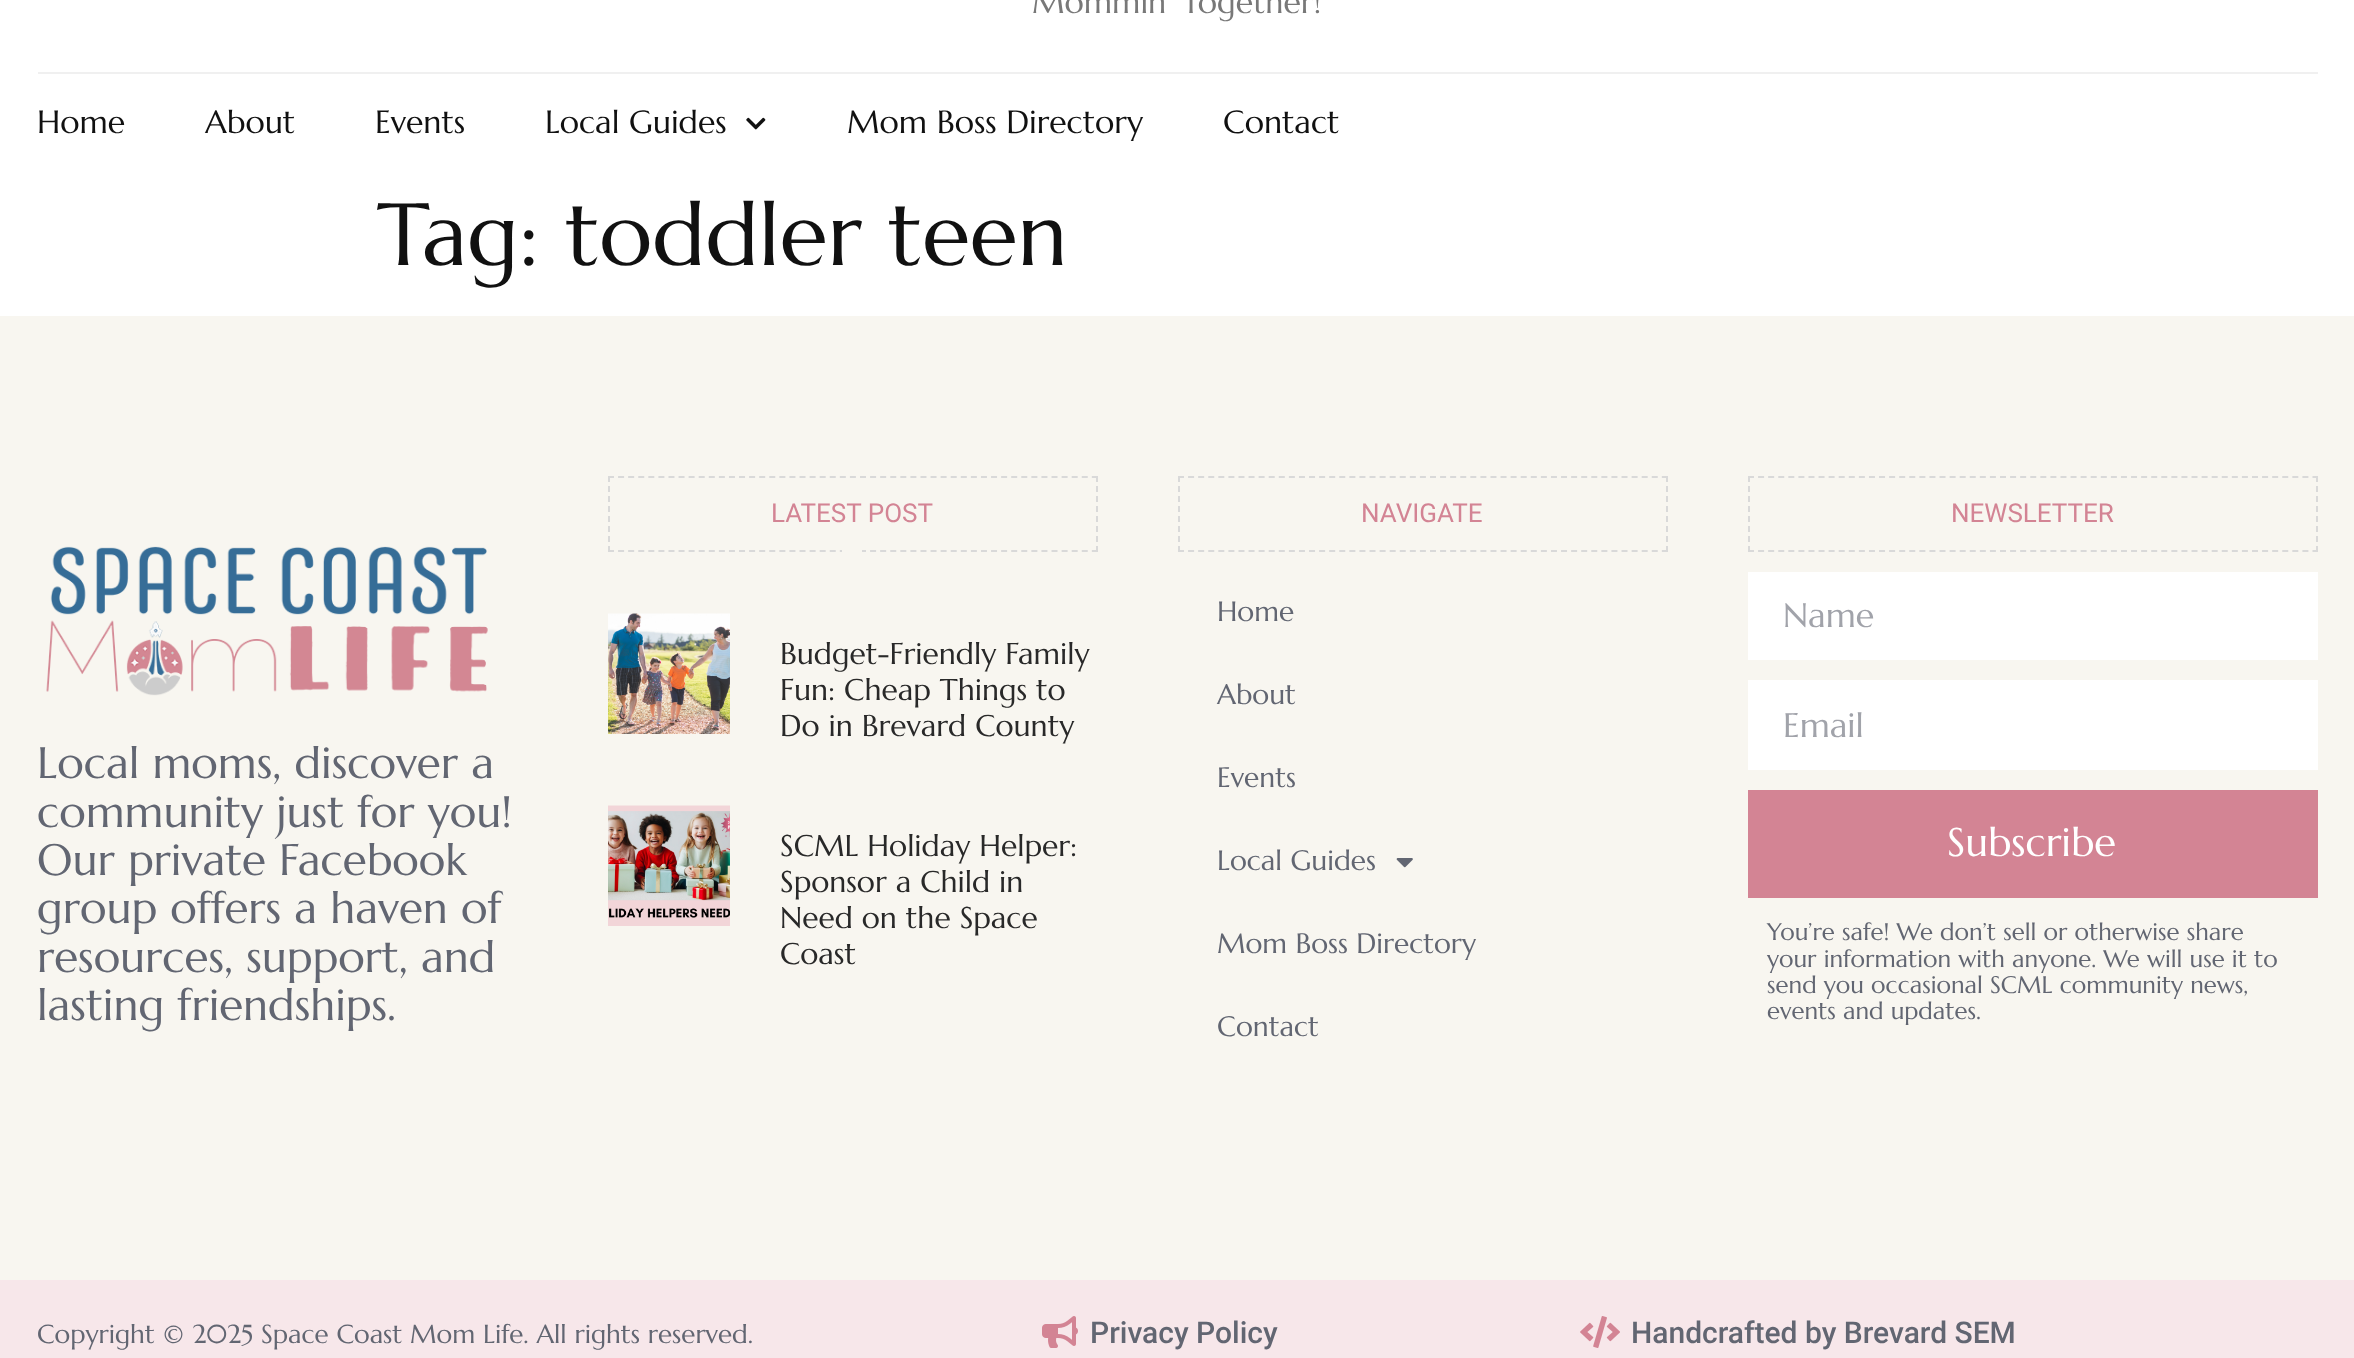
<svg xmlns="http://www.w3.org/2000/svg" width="2354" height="1358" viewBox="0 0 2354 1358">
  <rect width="100%" height="100%" fill="#ffffff"/>
  <text x="1032" y="13" font-family="Marcellus" font-size="32" fill="#787878">Mommin' Together!</text>
  <rect x="38" y="72" width="2280" height="2" fill="#f0f0f0"/>
  <text x="37" y="133" font-family="Marcellus" font-size="32" fill="#111111">Home</text>
  <text x="205" y="133" font-family="Marcellus" font-size="32" fill="#111111">About</text>
  <text x="375" y="133" font-family="Marcellus" font-size="32" fill="#111111">Events</text>
  <text x="545" y="133" font-family="Marcellus" font-size="32" fill="#111111">Local Guides</text>
  <image x="746" y="117" width="20" height="13" href="img1.png"/>
  <text x="847" y="133" font-family="Marcellus" font-size="32" fill="#111111">Mom Boss Directory</text>
  <text x="1223" y="133" font-family="Marcellus" font-size="32" fill="#111111">Contact</text>
  <text x="377" y="265" font-family="Marcellus" font-size="88" fill="#111111">Tag: toddler teen</text>
  <rect x="0" y="316" width="2354" height="964" fill="#f8f6f0"/>
  <image x="46" y="546" width="442" height="150" href="img2.png"/>
  <text x="37" y="778" font-family="Marcellus" font-size="44" fill="#626672">Local moms, discover a</text>
  <text x="37" y="827" font-family="Marcellus" font-size="44" fill="#626672">community just for you!</text>
  <text x="37" y="875" font-family="Marcellus" font-size="44" fill="#626672">Our private Facebook</text>
  <text x="37" y="923" font-family="Marcellus" font-size="44" fill="#626672">group offers a haven of</text>
  <text x="37" y="972" font-family="Marcellus" font-size="44" fill="#626672">resources, support, and</text>
  <text x="37" y="1020" font-family="Marcellus" font-size="44" fill="#626672">lasting friendships.</text>
  <path d="M608 477H1098" fill="none" stroke="#d9d9d9" stroke-width="2" stroke-dasharray="6 4.08"/>
  <path d="M1097 476V552" fill="none" stroke="#d9d9d9" stroke-width="2" stroke-dasharray="6 4"/>
  <path d="M608 551H1098" fill="none" stroke="#d9d9d9" stroke-width="2" stroke-dasharray="6 4.08"/>
  <path d="M609 476V552" fill="none" stroke="#d9d9d9" stroke-width="2" stroke-dasharray="6 4"/>
  <text x="771" y="522" font-family="Roboto" font-size="26" fill="#d38494">LATEST POST</text>
  <rect x="842" y="550" width="20" height="2" fill="#f8f6f0"/>
  <image x="608" y="613" width="122" height="121" href="img3.png"/>
  <text x="780" y="664" font-family="Marcellus" font-size="30" fill="#292929">Budget-Friendly Family</text>
  <text x="780" y="700" font-family="Marcellus" font-size="30" fill="#292929">Fun: Cheap Things to</text>
  <text x="780" y="736" font-family="Marcellus" font-size="30" fill="#292929">Do in Brevard County</text>
  <image x="608" y="805" width="122" height="121" href="img4.png"/>
  <text x="780" y="856" font-family="Marcellus" font-size="30" fill="#292929">SCML Holiday Helper:</text>
  <text x="780" y="892" font-family="Marcellus" font-size="30" fill="#292929">Sponsor a Child in</text>
  <text x="780" y="928" font-family="Marcellus" font-size="30" fill="#292929">Need on the Space</text>
  <text x="780" y="964" font-family="Marcellus" font-size="30" fill="#292929">Coast</text>
  <path d="M1178 477H1668" fill="none" stroke="#d9d9d9" stroke-width="2" stroke-dasharray="6 4.08"/>
  <path d="M1667 476V552" fill="none" stroke="#d9d9d9" stroke-width="2" stroke-dasharray="6 4"/>
  <path d="M1178 551H1668" fill="none" stroke="#d9d9d9" stroke-width="2" stroke-dasharray="6 4.08"/>
  <path d="M1179 476V552" fill="none" stroke="#d9d9d9" stroke-width="2" stroke-dasharray="6 4"/>
  <text x="1361" y="522" font-family="Roboto" font-size="26" fill="#d38494">NAVIGATE</text>
  <text x="1217" y="621" font-family="Marcellus" font-size="28" fill="#626672">Home</text>
  <text x="1217" y="704" font-family="Marcellus" font-size="28" fill="#626672">About</text>
  <text x="1217" y="787" font-family="Marcellus" font-size="28" fill="#626672">Events</text>
  <text x="1217" y="870" font-family="Marcellus" font-size="28" fill="#626672">Local Guides</text>
  <image x="1396" y="858" width="17" height="10" href="img5.png"/>
  <text x="1217" y="953" font-family="Marcellus" font-size="28" fill="#626672">Mom Boss Directory</text>
  <text x="1217" y="1036" font-family="Marcellus" font-size="28" fill="#626672">Contact</text>
  <path d="M1748 477H2318" fill="none" stroke="#d9d9d9" stroke-width="2" stroke-dasharray="6 4.08"/>
  <path d="M2317 476V552" fill="none" stroke="#d9d9d9" stroke-width="2" stroke-dasharray="6 4"/>
  <path d="M1748 551H2318" fill="none" stroke="#d9d9d9" stroke-width="2" stroke-dasharray="6 4.08"/>
  <path d="M1749 476V552" fill="none" stroke="#d9d9d9" stroke-width="2" stroke-dasharray="6 4"/>
  <text x="1951" y="522" font-family="Roboto" font-size="26" fill="#d38494">NEWSLETTER</text>
  <rect x="1748" y="572" width="570" height="88" fill="#ffffff"/>
  <text x="1783" y="627" font-family="Marcellus" font-size="34" fill="#a1a3aa">Name</text>
  <rect x="1748" y="680" width="570" height="90" fill="#ffffff"/>
  <text x="1783" y="737" font-family="Marcellus" font-size="34" fill="#a1a3aa">Email</text>
  <rect x="1748" y="790" width="570" height="108" fill="#d38494"/>
  <text x="1947" y="856" font-family="Marcellus" font-size="40" fill="#ffffff">Subscribe</text>
  <text x="1767" y="940" font-family="Marcellus" font-size="24" fill="#626672">You’re safe! We don’t sell or otherwise share</text>
  <text x="1767" y="967" font-family="Marcellus" font-size="24" fill="#626672">your information with anyone. We will use it to</text>
  <text x="1767" y="993" font-family="Marcellus" font-size="24" fill="#626672">send you occasional SCML community news,</text>
  <text x="1767" y="1019" font-family="Marcellus" font-size="24" fill="#626672">events and updates.</text>
  <rect x="0" y="1280" width="2354" height="78" fill="#f7e7ea"/>
  <text x="37" y="1343" font-family="Marcellus" font-size="26" fill="#626672">Copyright © 2025 Space Coast Mom Life. All rights reserved.</text>
  <image x="1042" y="1316" width="36" height="32" href="img6.png"/>
  <text x="1090" y="1343" font-family="Roboto" font-size="30" font-weight="500" fill="#626672">Privacy Policy</text>
  <image x="1580" y="1316" width="40" height="32" href="img7.png"/>
  <text x="1631" y="1343" font-family="Roboto" font-size="30" font-weight="500" fill="#626672">Handcrafted by Brevard SEM</text>
</svg>
